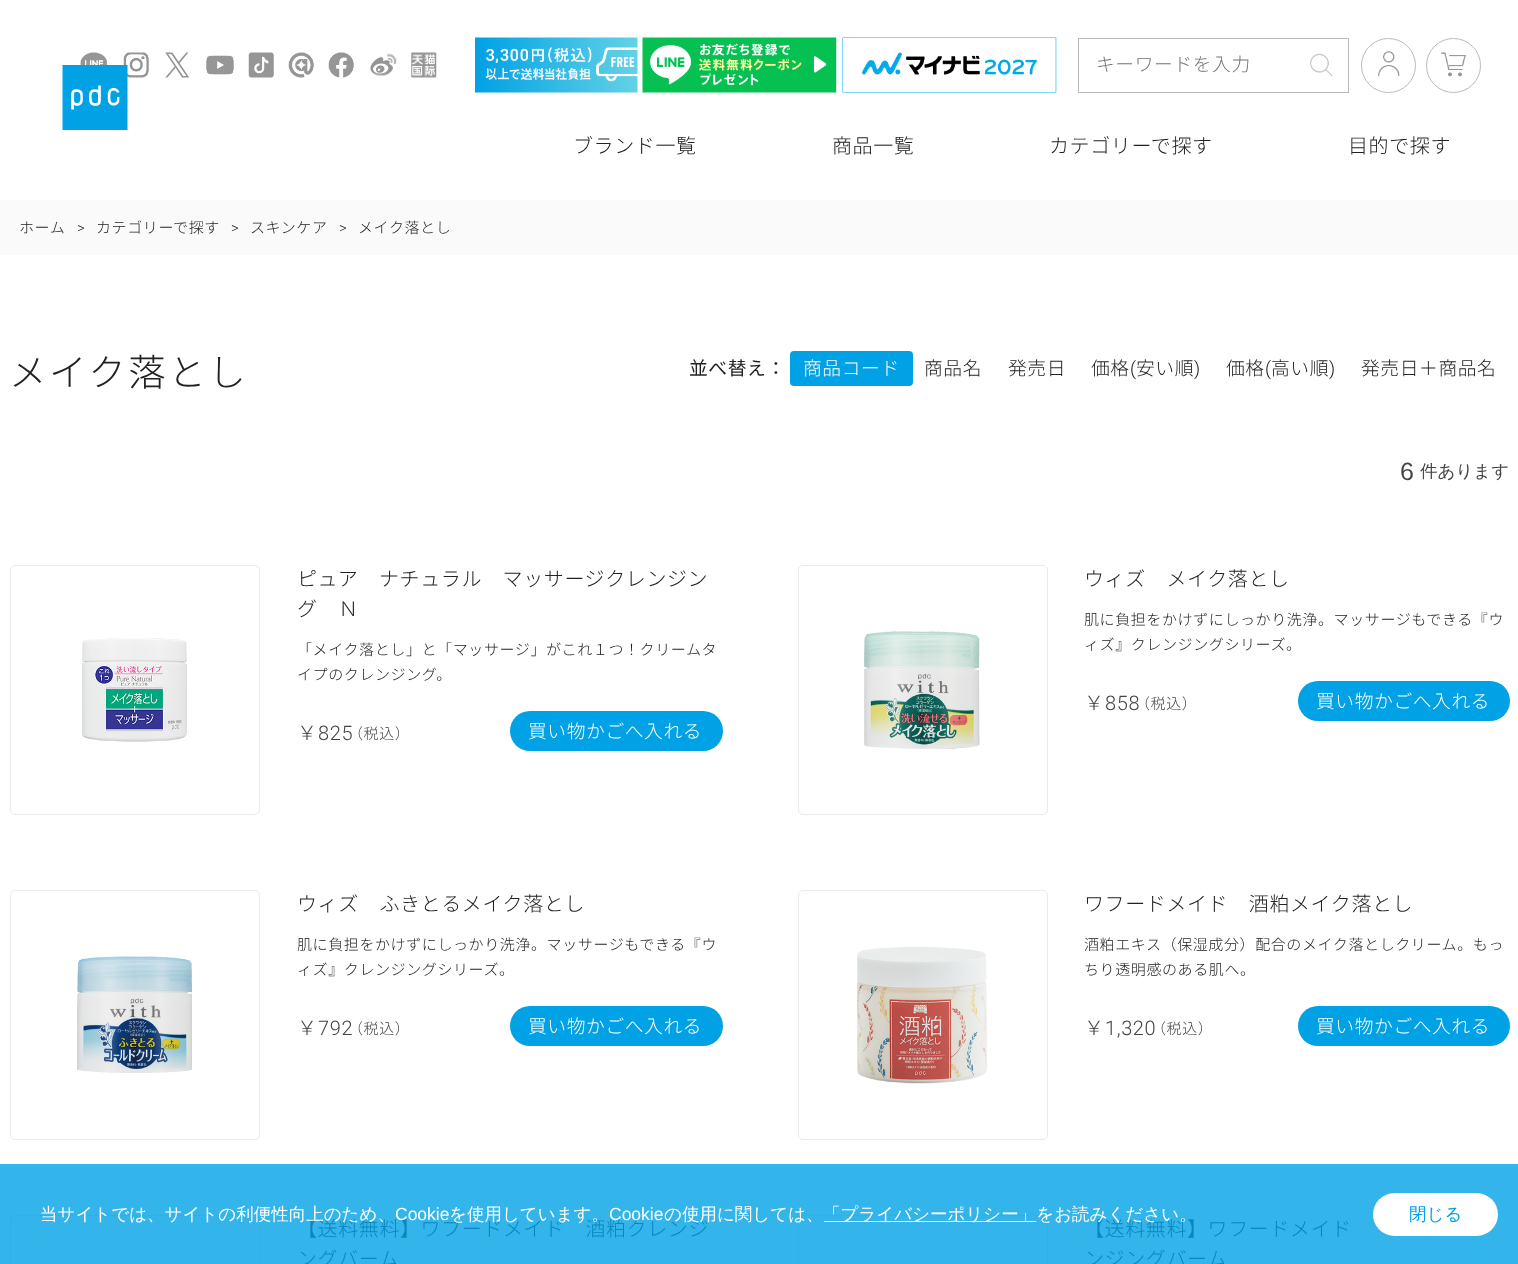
<svg xmlns="http://www.w3.org/2000/svg" width="1518" height="1264" viewBox="0 0 1518 1264">
  <rect width="100%" height="100%" fill="#ffffff"/>
  <rect x="0" y="1164" width="1518" height="100" fill="#33b4ea"/>
  <image x="80" y="52" width="27" height="13" href="img1.png"/>
  <image x="123" y="52" width="26" height="26" href="img2.png"/>
  <image x="165" y="52" width="24" height="26" href="img3.png"/>
  <image x="206" y="55" width="28" height="20" href="img4.png"/>
  <image x="248" y="52" width="26" height="26" href="img5.png"/>
  <image x="288" y="52" width="26" height="26" href="img6.png"/>
  <image x="328" y="52" width="26" height="26" href="img7.png"/>
  <image x="370" y="53" width="27" height="23" href="img8.png"/>
  <image x="411" y="52" width="26" height="26" href="img9.png"/>
  <image x="475" y="37" width="163" height="56" href="img10.png"/>
  <image x="642" y="37" width="195" height="56" href="img11.png"/>
  <image x="842" y="37" width="215" height="56" href="img12.png"/>
  <rect x="1078.5" y="38.5" width="270" height="54" fill="none" stroke="#bbbbbb"/>
  <text x="1096" y="71" font-family="Noto Sans JP" font-size="18.75" font-weight="300" letter-spacing="0.6" fill="#757575">キーワードを入力</text>
  <image x="1310" y="53" width="23" height="24" href="img13.png"/>
  <circle cx="1388.5" cy="65.5" r="27" fill="none" stroke="#bbbbbb"/>
  <image x="1378" y="51" width="22" height="26" href="img14.png"/>
  <circle cx="1453.5" cy="65.5" r="27" fill="none" stroke="#bbbbbb"/>
  <image x="1441" y="52" width="26" height="25" href="img15.png"/>
  <image x="62" y="65" width="66" height="65" href="img16.png"/>
  <text x="573" y="153" font-family="Noto Sans JP" font-size="20" font-weight="300" letter-spacing="0.6" fill="#222222">ブランド一覧</text>
  <text x="832" y="153" font-family="Noto Sans JP" font-size="20" font-weight="300" letter-spacing="0.6" fill="#222222">商品一覧</text>
  <text x="1049" y="153" font-family="Noto Sans JP" font-size="20" font-weight="300" letter-spacing="0.6" fill="#222222">カテゴリーで探す</text>
  <text x="1348" y="153" font-family="Noto Sans JP" font-size="20" font-weight="300" letter-spacing="0.6" fill="#222222">目的で探す</text>
  <rect x="0" y="200" width="1518" height="55" fill="#fafafa"/>
  <text x="19" y="233" font-family="Noto Sans JP" font-size="15" font-weight="300" letter-spacing="0.6" fill="#222222">ホーム</text>
  <text x="77" y="233" font-family="Roboto" font-size="15" font-weight="300" letter-spacing="0.6" fill="#222222">&gt;</text>
  <text x="96" y="233" font-family="Noto Sans JP" font-size="15" font-weight="300" letter-spacing="0.6" fill="#222222">カテゴリーで探す</text>
  <text x="231" y="233" font-family="Roboto" font-size="15" font-weight="300" letter-spacing="0.6" fill="#222222">&gt;</text>
  <text x="250" y="233" font-family="Noto Sans JP" font-size="15" font-weight="300" letter-spacing="0.6" fill="#222222">スキンケア</text>
  <text x="339" y="233" font-family="Roboto" font-size="15" font-weight="300" letter-spacing="0.6" fill="#222222">&gt;</text>
  <text x="358" y="233" font-family="Noto Sans JP" font-size="15" font-weight="300" letter-spacing="0.6" fill="#222222">メイク落とし</text>
  <text x="9" y="386" font-family="Noto Sans JP" font-size="37.5" font-weight="300" letter-spacing="2.5" fill="#222222">メイク落とし</text>
  <text x="689" y="375" font-family="Noto Sans JP" font-size="18.75" letter-spacing="0.6" fill="#222222">並べ替え：</text>
  <rect x="790" y="351" width="123" height="35" rx="4" fill="#00a1e5"/>
  <text x="803" y="375" font-family="Noto Sans JP" font-size="18.75" font-weight="300" letter-spacing="0.6" fill="#ffffff">商品コード</text>
  <text x="924" y="375" font-family="Noto Sans JP" font-size="18.75" font-weight="300" letter-spacing="0.6" fill="#222222">商品名</text>
  <text x="1008" y="375" font-family="Noto Sans JP" font-size="18.75" font-weight="300" letter-spacing="0.6" fill="#222222">発売日</text>
  <text x="1091" y="375" font-family="Noto Sans JP" font-size="18.75" font-weight="300" letter-spacing="0.6" fill="#222222">価格</text>
  <text x="1130" y="375" font-family="Roboto" font-size="18.75" font-weight="300" letter-spacing="0.6" fill="#222222">(</text>
  <text x="1136" y="375" font-family="Noto Sans JP" font-size="18.75" font-weight="300" letter-spacing="0.6" fill="#222222">安い順</text>
  <text x="1194" y="375" font-family="Roboto" font-size="18.75" font-weight="300" letter-spacing="0.6" fill="#222222">)</text>
  <text x="1226" y="375" font-family="Noto Sans JP" font-size="18.75" font-weight="300" letter-spacing="0.6" fill="#222222">価格</text>
  <text x="1265" y="375" font-family="Roboto" font-size="18.75" font-weight="300" letter-spacing="0.6" fill="#222222">(</text>
  <text x="1271" y="375" font-family="Noto Sans JP" font-size="18.75" font-weight="300" letter-spacing="0.6" fill="#222222">高い順</text>
  <text x="1329" y="375" font-family="Roboto" font-size="18.75" font-weight="300" letter-spacing="0.6" fill="#222222">)</text>
  <text x="1361" y="375" font-family="Noto Sans JP" font-size="18.75" font-weight="300" letter-spacing="0.6" fill="#222222">発売日＋商品名</text>
  <text x="1400" y="480" font-family="Liberation Sans" font-size="25" fill="#444444">6</text>
  <text x="1420" y="477" font-family="WenQuanYi Zen Hei" font-size="17.5" font-weight="500" fill="#444444">件あります</text>
  <rect x="10.5" y="565.5" width="249" height="249" rx="4.5" fill="none" stroke="#ebebeb"/>
  <image x="82" y="638" width="105" height="104" href="img17.png"/>
  <text x="297" y="586" font-family="Noto Sans JP" font-size="20" font-weight="300" letter-spacing="0.6" fill="#222222">ピュア　ナチュラル　マッサージクレンジン</text>
  <text x="297" y="616" font-family="Noto Sans JP" font-size="20" font-weight="300" letter-spacing="0.6" fill="#222222">グ　Ｎ</text>
  <text x="297" y="655" font-family="Noto Sans JP" font-size="15" font-weight="300" letter-spacing="0.6" fill="#222222">「メイク落とし」と「マッサージ」がこれ１つ！クリームタ</text>
  <text x="297" y="680" font-family="Noto Sans JP" font-size="15" font-weight="300" letter-spacing="0.6" fill="#222222">イプのクレンジング。</text>
  <text x="297" y="740" font-family="Noto Sans JP" font-size="20" font-weight="300" letter-spacing="0.6" fill="#444444">￥</text>
  <text x="318" y="740" font-family="Roboto" font-size="20" font-weight="300" letter-spacing="0.6" fill="#444444">825</text>
  <text x="348" y="739" font-family="Noto Sans JP" font-size="15" font-weight="300" letter-spacing="0.6" fill="#444444">（税込）</text>
  <rect x="510" y="711" width="213" height="40" rx="20" fill="#00a1e5"/>
  <text x="528" y="738" font-family="Noto Sans JP" font-size="18.75" font-weight="300" letter-spacing="0.6" fill="#ffffff">買い物かごへ入れる</text>
  <rect x="798.5" y="565.5" width="249" height="249" rx="4.5" fill="none" stroke="#ebebeb"/>
  <image x="864" y="631" width="116" height="118" href="img18.png"/>
  <text x="1084" y="586" font-family="Noto Sans JP" font-size="20" font-weight="300" letter-spacing="0.6" fill="#222222">ウィズ　メイク落とし</text>
  <text x="1084" y="625" font-family="Noto Sans JP" font-size="15" font-weight="300" letter-spacing="0.6" fill="#222222">肌に負担をかけずにしっかり洗浄。マッサージもできる『ウ</text>
  <text x="1084" y="650" font-family="Noto Sans JP" font-size="15" font-weight="300" letter-spacing="0.6" fill="#222222">ィズ』クレンジングシリーズ。</text>
  <text x="1084" y="710" font-family="Noto Sans JP" font-size="20" font-weight="300" letter-spacing="0.6" fill="#444444">￥</text>
  <text x="1105" y="710" font-family="Roboto" font-size="20" font-weight="300" letter-spacing="0.6" fill="#444444">858</text>
  <text x="1135" y="709" font-family="Noto Sans JP" font-size="15" font-weight="300" letter-spacing="0.6" fill="#444444">（税込）</text>
  <rect x="1298" y="681" width="212" height="40" rx="20" fill="#00a1e5"/>
  <text x="1316" y="708" font-family="Noto Sans JP" font-size="18.75" font-weight="300" letter-spacing="0.6" fill="#ffffff">買い物かごへ入れる</text>
  <rect x="10.5" y="890.5" width="249" height="249" rx="4.5" fill="none" stroke="#ebebeb"/>
  <image x="77" y="956" width="115" height="117" href="img19.png"/>
  <text x="297" y="911" font-family="Noto Sans JP" font-size="20" font-weight="300" letter-spacing="0.6" fill="#222222">ウィズ　ふきとるメイク落とし</text>
  <text x="297" y="950" font-family="Noto Sans JP" font-size="15" font-weight="300" letter-spacing="0.6" fill="#222222">肌に負担をかけずにしっかり洗浄。マッサージもできる『ウ</text>
  <text x="297" y="975" font-family="Noto Sans JP" font-size="15" font-weight="300" letter-spacing="0.6" fill="#222222">ィズ』クレンジングシリーズ。</text>
  <text x="297" y="1035" font-family="Noto Sans JP" font-size="20" font-weight="300" letter-spacing="0.6" fill="#444444">￥</text>
  <text x="318" y="1035" font-family="Roboto" font-size="20" font-weight="300" letter-spacing="0.6" fill="#444444">792</text>
  <text x="348" y="1034" font-family="Noto Sans JP" font-size="15" font-weight="300" letter-spacing="0.6" fill="#444444">（税込）</text>
  <rect x="510" y="1006" width="213" height="40" rx="20" fill="#00a1e5"/>
  <text x="528" y="1033" font-family="Noto Sans JP" font-size="18.75" font-weight="300" letter-spacing="0.6" fill="#ffffff">買い物かごへ入れる</text>
  <rect x="798.5" y="890.5" width="249" height="249" rx="4.5" fill="none" stroke="#ebebeb"/>
  <image x="857" y="946" width="130" height="138" href="img20.png"/>
  <text x="1084" y="911" font-family="Noto Sans JP" font-size="20" font-weight="300" letter-spacing="0.6" fill="#222222">ワフードメイド　酒粕メイク落とし</text>
  <text x="1084" y="950" font-family="Noto Sans JP" font-size="15" font-weight="300" letter-spacing="0.6" fill="#222222">酒粕エキス（保湿成分）配合のメイク落としクリーム。もっ</text>
  <text x="1084" y="975" font-family="Noto Sans JP" font-size="15" font-weight="300" letter-spacing="0.6" fill="#222222">ちり透明感のある肌へ。</text>
  <text x="1084" y="1035" font-family="Noto Sans JP" font-size="20" font-weight="300" letter-spacing="0.6" fill="#444444">￥</text>
  <text x="1105" y="1035" font-family="Roboto" font-size="20" font-weight="300" letter-spacing="0.6" fill="#444444">1,320</text>
  <text x="1151" y="1034" font-family="Noto Sans JP" font-size="15" font-weight="300" letter-spacing="0.6" fill="#444444">（税込）</text>
  <rect x="1298" y="1006" width="212" height="40" rx="20" fill="#00a1e5"/>
  <text x="1316" y="1033" font-family="Noto Sans JP" font-size="18.75" font-weight="300" letter-spacing="0.6" fill="#ffffff">買い物かごへ入れる</text>
  <rect x="10.5" y="1215.5" width="249" height="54" rx="4.5" fill="none" stroke="#2fb0e6"/>
  <text x="297" y="1236" font-family="Noto Sans JP" font-size="20" font-weight="300" letter-spacing="0.6" fill="#0788be">【送料無料】ワフードメイド　酒粕クレンジ</text>
  <text x="297" y="1266" font-family="Noto Sans JP" font-size="20" font-weight="300" letter-spacing="0.6" fill="#0788be">ングバーム</text>
  <rect x="798.5" y="1215.5" width="249" height="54" rx="4.5" fill="none" stroke="#2fb0e6"/>
  <text x="1084" y="1236" font-family="Noto Sans JP" font-size="20" font-weight="300" letter-spacing="0.6" fill="#0788be">【送料無料】ワフードメイド</text>
  <text x="1084" y="1266" font-family="Noto Sans JP" font-size="20" font-weight="300" letter-spacing="0.6" fill="#0788be">ンジングバーム</text>
  <text x="40" y="1220" font-family="WenQuanYi Zen Hei" font-size="17.5" font-weight="500" fill="#ffffff">当サイトでは、サイトの利便性向上のため、</text>
  <text x="395" y="1220" font-family="Liberation Sans" font-size="17.5" fill="#ffffff">Cookie</text>
  <text x="449" y="1220" font-family="WenQuanYi Zen Hei" font-size="17.5" font-weight="500" fill="#ffffff">を使用しています。</text>
  <text x="609" y="1220" font-family="Liberation Sans" font-size="17.5" fill="#ffffff">Cookie</text>
  <text x="664" y="1220" font-family="WenQuanYi Zen Hei" font-size="17.5" font-weight="500" fill="#ffffff">の使用に関しては、</text>
  <rect x="824" y="1221" width="212" height="1" fill="#ffffff"/>
  <text x="823" y="1220" font-family="WenQuanYi Zen Hei" font-size="17.5" font-weight="500" fill="#ffffff">「プライバシーポリシー」をお読みください。</text>
  <rect x="1373" y="1193" width="125" height="43" rx="21.5" fill="#ffffff"/>
  <text x="1409" y="1220" font-family="WenQuanYi Zen Hei" font-size="17.5" font-weight="500" fill="#00a1e5">閉じる</text>
</svg>
